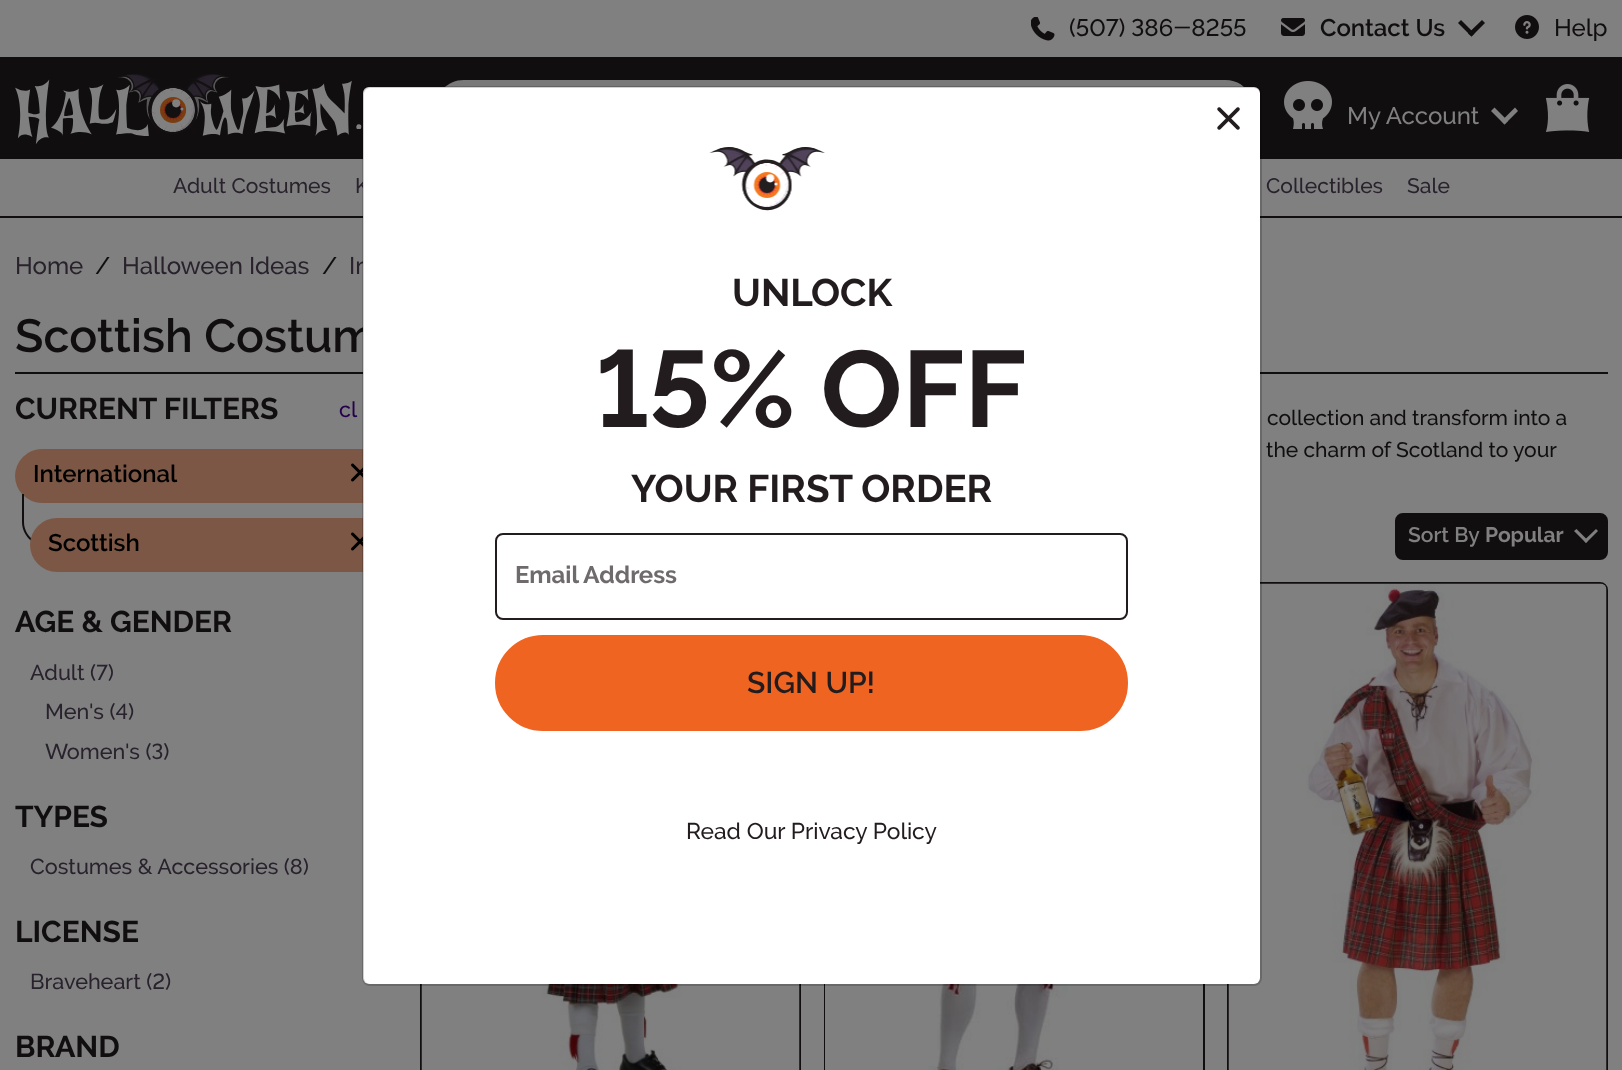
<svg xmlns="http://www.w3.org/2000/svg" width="1622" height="1070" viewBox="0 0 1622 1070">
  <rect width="100%" height="100%" fill="#808080"/>
  <image x="1031" y="17" width="24" height="24" href="img1.png"/>
  <text x="1069" y="36" font-family="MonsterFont" font-size="24" font-weight="500" fill="#110e0f">(507) 386-8255</text>
  <image x="1281" y="18" width="24" height="18" href="img2.png"/>
  <text x="1320" y="36" font-family="MonsterFont" font-size="24" font-weight="600" fill="#110e0f">Contact Us</text>
  <path d="M1485 23L1471.5 36.5L1468 33.5L1482 20Z" fill="#110e0f"/>
  <path d="M1474.5 33.5L1471.5 36.5L1458 23L1461 20Z" fill="#110e0f"/>
  <image x="1515" y="15" width="24" height="24" href="img3.png"/>
  <text x="1554" y="36" font-family="MonsterFont" font-size="24" font-weight="500" fill="#110e0f">Help</text>
  <rect x="0" y="57" width="1622" height="102" fill="#110e0f"/>
  <image x="15" y="74" width="347" height="70" href="img4.png"/>
  <path d="M463.5 80H1193V137H463.5C448 137 435 124 435 108.5C435 93 448 80 463.5 80Z" fill="#797979"/>
  <path d="M1192 81H1225.5C1240.5 81 1253 93.5 1253 108.5C1253 123.5 1240.5 136 1225.5 136H1192Z" fill="#797979" stroke="#797979" stroke-width="2"/>
  <image x="1284" y="81" width="48" height="48" href="img5.png"/>
  <text x="1347" y="124" font-family="MonsterFont" font-size="24" font-weight="500" fill="#808080">My Account</text>
  <path d="M1518 111L1504.5 124.5L1501.5 121L1515 107.5Z" fill="#808080"/>
  <path d="M1508 121L1504.5 124.5L1491 111L1494.5 107.5Z" fill="#808080"/>
  <image x="1545" y="84" width="45" height="48" href="img6.png"/>
  <rect x="0" y="216" width="1622" height="2" fill="#110e0f"/>
  <text x="173" y="193" font-family="MonsterFont" font-size="21" font-weight="500" fill="#29222d">Adult Costumes</text>
  <text x="355" y="193" font-family="MonsterFont" font-size="21" font-weight="500" fill="#29222d">K</text>
  <text x="1266" y="193" font-family="MonsterFont" font-size="21" font-weight="500" fill="#29222d">Collectibles</text>
  <text x="1407" y="193" font-family="MonsterFont" font-size="21" font-weight="500" fill="#29222d">Sale</text>
  <text x="15" y="274" font-family="MonsterFont" font-size="24" font-weight="500" fill="#29222d">Home</text>
  <text x="95" y="274" font-family="MonsterFont" font-size="24" font-weight="500" fill="#110e0f">/</text>
  <text x="122" y="274" font-family="MonsterFont" font-size="24" font-weight="500" fill="#29222d">Halloween Ideas</text>
  <text x="322" y="274" font-family="MonsterFont" font-size="24" font-weight="500" fill="#110e0f">/</text>
  <text x="349" y="274" font-family="MonsterFont" font-size="24" font-weight="500" fill="#29222d">In</text>
  <text x="15" y="352" font-family="MonsterFont" font-size="46.5" font-weight="600" fill="#110e0f">Scottish Costum</text>
  <rect x="15" y="372" width="1593" height="2" fill="#110e0f"/>
  <text x="15" y="419" font-family="MonsterFont" font-size="30" font-weight="bold" fill="#110e0f">CURRENT FILTERS</text>
  <text x="339" y="417" font-family="MonsterFont" font-size="21.6" font-weight="500" fill="#24004d">cl</text>
  <rect x="15" y="449" width="375" height="54" rx="27" fill="#7c5746"/>
  <text x="33" y="482" font-family="MonsterFont" font-size="24" font-weight="600" fill="#000000">International</text>
  <image x="351" y="463" width="12" height="19" href="img7.png"/>
  <path d="M22 494H46V546C33 546 22 535 22 522ZM24 494H46V544C34 544 24 534 24 522Z" fill="#110e0f" fill-rule="evenodd"/>
  <rect x="30" y="518" width="360" height="54" rx="27" fill="#7c5746"/>
  <text x="48" y="551" font-family="MonsterFont" font-size="24" font-weight="600" fill="#000000">Scottish</text>
  <image x="351" y="532" width="12" height="19" href="img7.png"/>
  <text x="15" y="632" font-family="MonsterFont" font-size="30" font-weight="bold" fill="#110e0f">AGE &amp; GENDER</text>
  <text x="30" y="680" font-family="MonsterFont" font-size="21.6" font-weight="500" fill="#29222d">Adult (7)</text>
  <text x="45" y="719" font-family="MonsterFont" font-size="21.6" font-weight="500" fill="#29222d">Men's (4)</text>
  <text x="45" y="759" font-family="MonsterFont" font-size="21.6" font-weight="500" fill="#29222d">Women's (3)</text>
  <text x="15" y="827" font-family="MonsterFont" font-size="30" font-weight="bold" fill="#110e0f">TYPES</text>
  <text x="30" y="874" font-family="MonsterFont" font-size="21.6" font-weight="500" fill="#29222d">Costumes &amp; Accessories (8)</text>
  <text x="15" y="942" font-family="MonsterFont" font-size="30" font-weight="bold" fill="#110e0f">LICENSE</text>
  <text x="30" y="989" font-family="MonsterFont" font-size="21.6" font-weight="500" fill="#29222d">Braveheart (2)</text>
  <text x="15" y="1057" font-family="MonsterFont" font-size="30" font-weight="bold" fill="#110e0f">BRAND</text>
  <text x="1267" y="425" font-family="MonsterFont" font-size="21" font-weight="500" fill="#110e0f">collection and transform into a</text>
  <text x="1266" y="457" font-family="MonsterFont" font-size="21" font-weight="500" fill="#110e0f">the charm of Scotland to your</text>
  <rect x="1396" y="514" width="211" height="45" rx="7" fill="#110e0f" stroke="#110e0f" stroke-width="2"/>
  <text x="1408" y="542" font-family="MonsterFont" font-size="21" font-weight="600" fill="#808080">Sort By</text>
  <text x="1485" y="542" font-family="MonsterFont" font-size="21" font-weight="bold" fill="#808080">Popular</text>
  <path d="M1598 531L1586 543L1584 540.5L1596 529Z" fill="#808080"/>
  <path d="M1588 540.5L1586 543L1574 531L1576.5 529Z" fill="#808080"/>
  <rect x="421" y="583" width="379" height="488" fill="none" stroke="#110e0f" stroke-width="2"/>
  <image x="421" y="984" width="379" height="86" href="img8.png"/>
  <rect x="825" y="583" width="379" height="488" fill="none" stroke="#110e0f" stroke-width="2"/>
  <image x="825" y="984" width="378" height="86" href="img9.png"/>
  <rect x="1228" y="583" width="379" height="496" rx="7" fill="none" stroke="#110e0f" stroke-width="2"/>
  <image x="1228" y="583" width="379" height="487" href="img10.png"/>
  <rect x="363" y="87" width="897" height="897" rx="6" fill="#ffffff"/>
  <rect x="363" y="87" width="898" height="898" rx="7" fill="none" stroke="#000000" stroke-opacity="0.18" stroke-width="2"/>
  <image x="1217" y="107" width="23" height="23" href="img11.png"/>
  <image x="709" y="147" width="116" height="64" href="img12.png"/>
  <text x="732" y="306" font-family="MonsterFont" font-size="38.5" font-weight="bold" fill="#221c1e">UNLOCK</text>
  <text x="596" y="427" font-family="MonsterFont" font-size="108" font-weight="bold" fill="#221c1e">15% OFF</text>
  <text x="631" y="502" font-family="MonsterFont" font-size="38.5" font-weight="bold" fill="#221c1e">YOUR FIRST ORDER</text>
  <rect x="496" y="534" width="631" height="85" rx="7" fill="none" stroke="#221c1e" stroke-width="2"/>
  <text x="515" y="583" font-family="MonsterFont" font-size="24" font-weight="bold" fill="#6f6b6d">Email Address</text>
  <rect x="496" y="636" width="631" height="94" rx="47" fill="#f06422" stroke="#f06422" stroke-width="2"/>
  <text x="747" y="693" font-family="MonsterFont" font-size="30" font-weight="600" fill="#221c1e">SIGN UP!</text>
  <text x="686" y="839" font-family="MonsterFont" font-size="22.75" font-weight="500" fill="#221c1e">Read Our Privacy Policy</text>
</svg>
